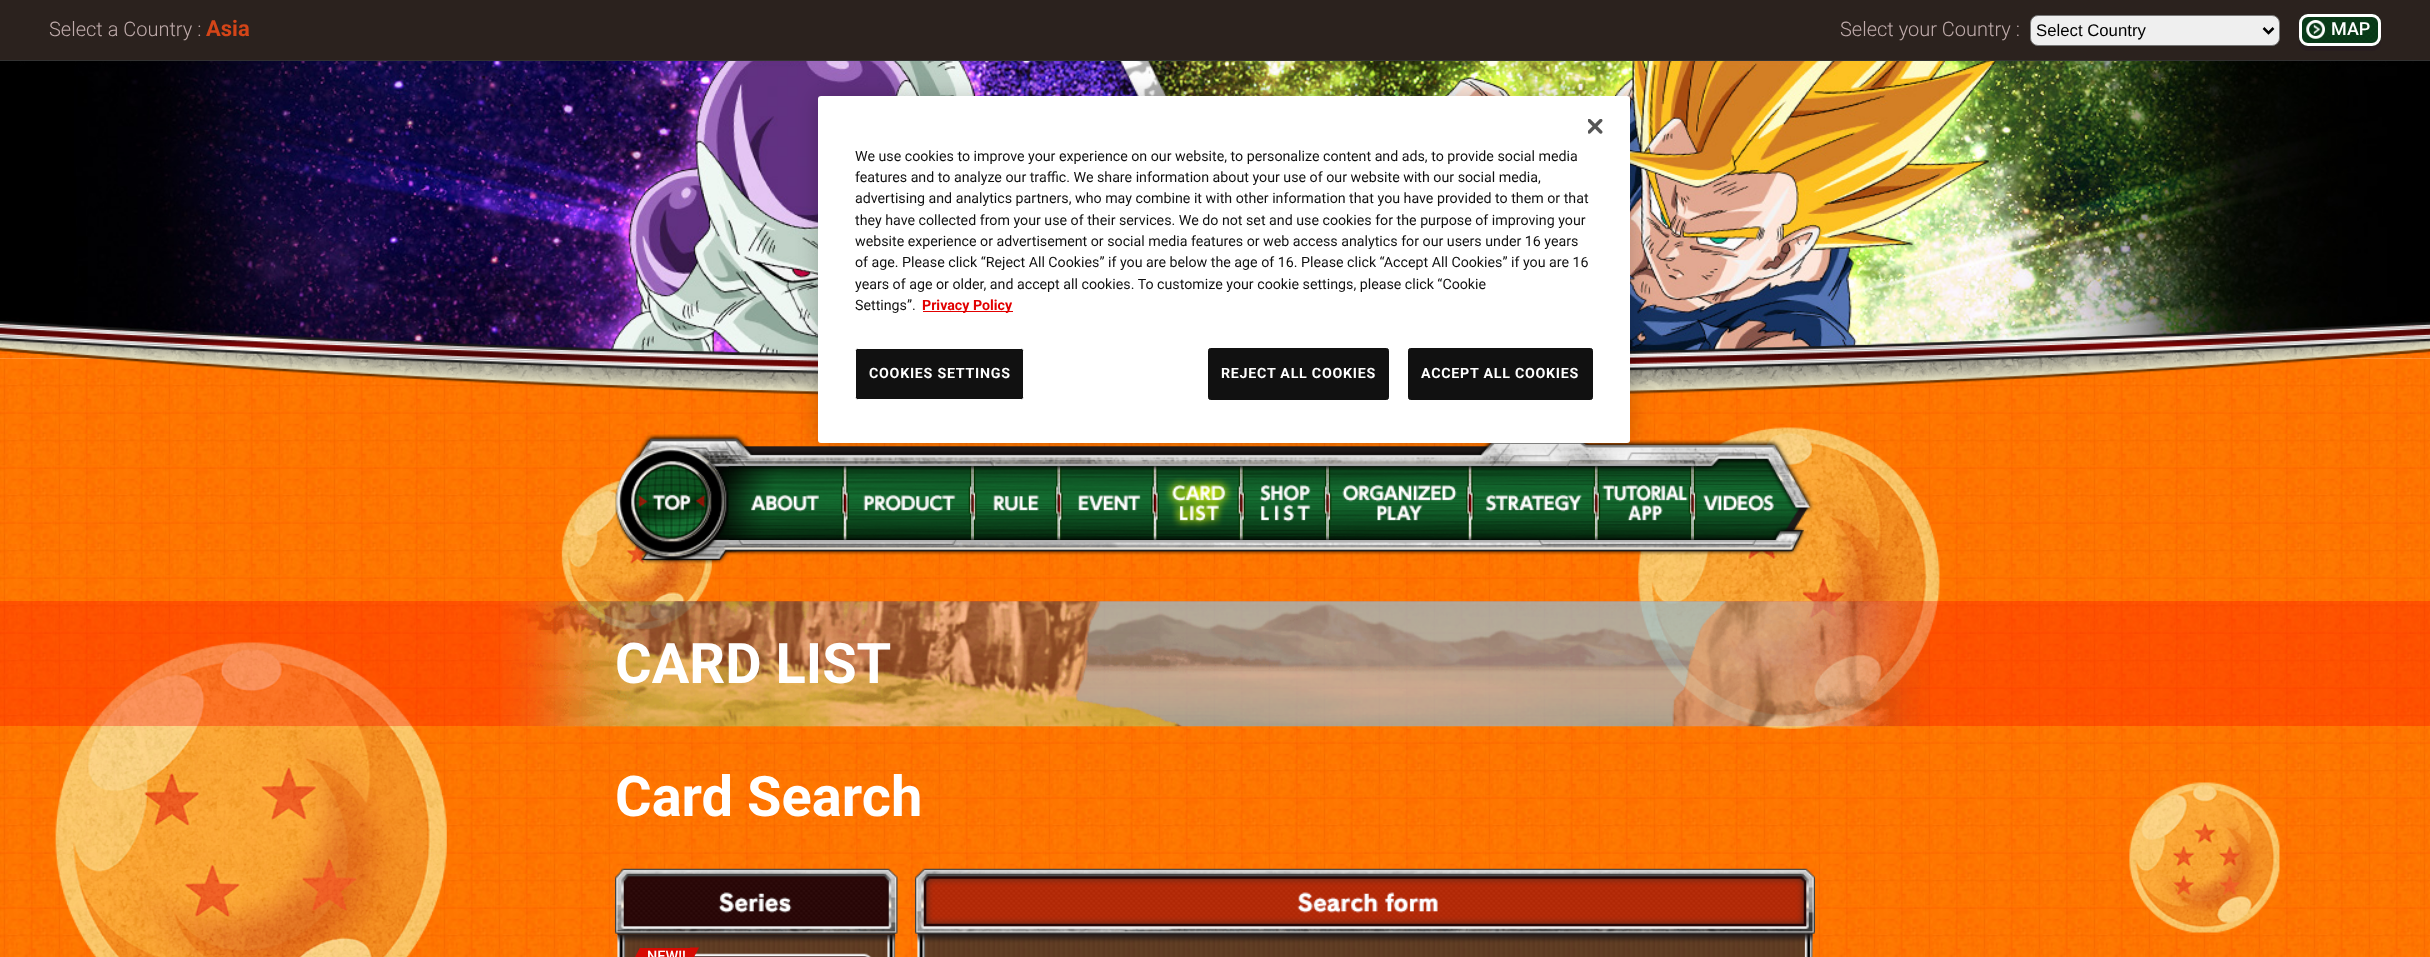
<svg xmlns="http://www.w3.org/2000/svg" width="2430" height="957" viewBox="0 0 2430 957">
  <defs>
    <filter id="blur1" x="-50%" y="-200%" width="200%" height="500%"><feGaussianBlur stdDeviation="11"/></filter>
  </defs>
  <rect width="100%" height="100%" fill="#ffffff"/>
  <image x="0" y="358" width="2430" height="599" href="img1.png"/>
  <rect x="0" y="0" width="2430" height="60" fill="#2b221e"/>
  <text x="49" y="36" font-family="Roboto" font-size="20" font-weight="300" fill="#bfabab">Select a Country :</text>
  <text x="206" y="36" font-family="Roboto" font-size="22" font-weight="bold" fill="#d44518">Asia</text>
  <text x="1840" y="36" font-family="Roboto" font-size="20" font-weight="300" fill="#bfabab">Select your Country :</text>
  <rect x="2030.5" y="15.5" width="249" height="30" rx="7.5" fill="#efefef" stroke="#767676"/>
  <path d="M2263.5 28L2268.5 33L2273.5 28" fill="none" stroke="#000000" stroke-width="2.5"/>
  <text x="2036" y="36" font-family="Liberation Sans" font-size="16.75" fill="#000000">Select Country</text>
  <path d="M2299 40C2299 53 2308 51 2319 51H2361C2372 51 2381 53 2381 40C2380 43 2377 46 2372 46H2308C2303 46 2300 43 2299 40Z" fill="#281e1f"/>
  <rect x="2299" y="14" width="82" height="32" rx="9" fill="#0a3e1a"/>
  <image x="2299" y="14" width="82" height="32" href="img2.png"/>
  <rect x="2300.5" y="15.5" width="79" height="29" rx="7.5" fill="none" stroke="#ffffff" stroke-width="3"/>
  <image x="2306" y="20" width="19" height="19" href="img3.png"/>
  <text x="2331" y="35" font-family="Roboto" font-size="18" font-weight="500" fill="#ffffff">MAP</text>
  <rect x="0" y="60" width="2430" height="1" fill="#333333"/>
  <image x="615" y="434" width="1199" height="130" href="img4.png"/>
  <image x="631" y="461" width="81" height="82" href="img5.png"/>
  <image x="728" y="466" width="117" height="74" href="img6.png"/>
  <image x="845" y="466" width="128" height="74" href="img7.png"/>
  <image x="972" y="466" width="87" height="74" href="img8.png"/>
  <image x="1058" y="466" width="97" height="74" href="img9.png"/>
  <image x="1155" y="466" width="87" height="74" href="img10.png"/>
  <image x="1241" y="466" width="87" height="74" href="img11.png"/>
  <image x="1327" y="466" width="143" height="74" href="img12.png"/>
  <image x="1470" y="466" width="127" height="74" href="img13.png"/>
  <image x="1596" y="466" width="97" height="74" href="img14.png"/>
  <image x="1692" y="466" width="90" height="74" href="img15.png"/>
  <rect x="0" y="601" width="2430" height="125" fill="#ff0000" fill-opacity="0.3"/>
  <image x="501" y="601" width="1429" height="126" href="img16.png"/>
  <text x="615" y="683" font-family="Roboto" font-size="56" font-weight="bold" fill="#ffffff">CARD LIST</text>
  <text x="615" y="816" font-family="Roboto" font-size="56" font-weight="bold" fill="#ffffff">Card Search</text>
  <image x="617" y="935" width="279" height="22" href="img18.png"/>
  <image x="615" y="868" width="283" height="75" href="img17.png"/>
  <image x="694" y="953" width="178" height="4" href="img19.png"/>
  <rect x="640" y="948" width="50" height="9" fill="#d80a02"/>
  <path d="M640 947.5V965H631Z" fill="#d80a02"/>
  <text x="647" y="961" font-family="Roboto" font-size="14.5" font-weight="500" fill="#ffffff">NEW!!</text>
  <path d="M690 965V947.5H699Z" fill="#d80a02"/>
  <image x="917" y="933" width="896" height="24" href="img20.png"/>
  <image x="915" y="868" width="900" height="75" href="img21.png"/>
  <image x="0" y="61" width="2430" height="298" href="img22.png"/>
  <image x="0" y="321" width="2430" height="75" href="img23.png"/>
  <rect x="818" y="96" width="812" height="347" rx="3" fill="#000000" fill-opacity="0.2" filter="url(#blur1)"/>
  <rect x="818" y="96" width="812" height="347" rx="3" fill="#ffffff"/>
  <image x="1588" y="119" width="15" height="15" href="img24.png"/>
  <text x="855" y="161" font-family="Roboto" font-size="14.23" fill="#111111">We use cookies to improve your experience on our website, to personalize content and ads, to provide social media</text>
  <text x="855" y="182" font-family="Roboto" font-size="14.23" fill="#111111">features and to analyze our traffic. We share information about your use of our website with our social media,</text>
  <text x="855" y="203" font-family="Roboto" font-size="14.23" fill="#111111">advertising and analytics partners, who may combine it with other information that you have provided to them or that</text>
  <text x="855" y="225" font-family="Roboto" font-size="14.23" fill="#111111">they have collected from your use of their services. We do not set and use cookies for the purpose of improving your</text>
  <text x="855" y="246" font-family="Roboto" font-size="14.23" fill="#111111">website experience or advertisement or social media features or web access analytics for our users under 16 years</text>
  <text x="855" y="267" font-family="Roboto" font-size="14.23" fill="#111111">of age. Please click “Reject All Cookies” if you are below the age of 16. Please click “Accept All Cookies” if you are 16</text>
  <text x="855" y="289" font-family="Roboto" font-size="14.23" fill="#111111">years of age or older, and accept all cookies. To customize your cookie settings, please click “Cookie</text>
  <text x="855" y="310" font-family="Roboto" font-size="14.23" fill="#111111">Settings”.</text>
  <rect x="923" y="311" width="90" height="1" fill="#e20000"/>
  <text x="922" y="310" font-family="Roboto" font-size="14.23" font-weight="bold" fill="#e20000">Privacy Policy</text>
  <rect x="855.5" y="348.5" width="168" height="51" rx="2" fill="#111111" stroke="#ffffff"/>
  <text x="869" y="378" font-family="Roboto" font-size="14.23" font-weight="bold" letter-spacing="0.75" fill="#ffffff">COOKIES SETTINGS</text>
  <rect x="1208.5" y="348.5" width="180" height="51" rx="2" fill="#111111" stroke="#111111"/>
  <text x="1221" y="378" font-family="Roboto" font-size="14.23" font-weight="bold" letter-spacing="0.75" fill="#ffffff">REJECT ALL COOKIES</text>
  <rect x="1408.5" y="348.5" width="184" height="51" rx="2" fill="#111111" stroke="#111111"/>
  <text x="1421" y="378" font-family="Roboto" font-size="14.23" font-weight="bold" letter-spacing="0.75" fill="#ffffff">ACCEPT ALL COOKIES</text>
</svg>
